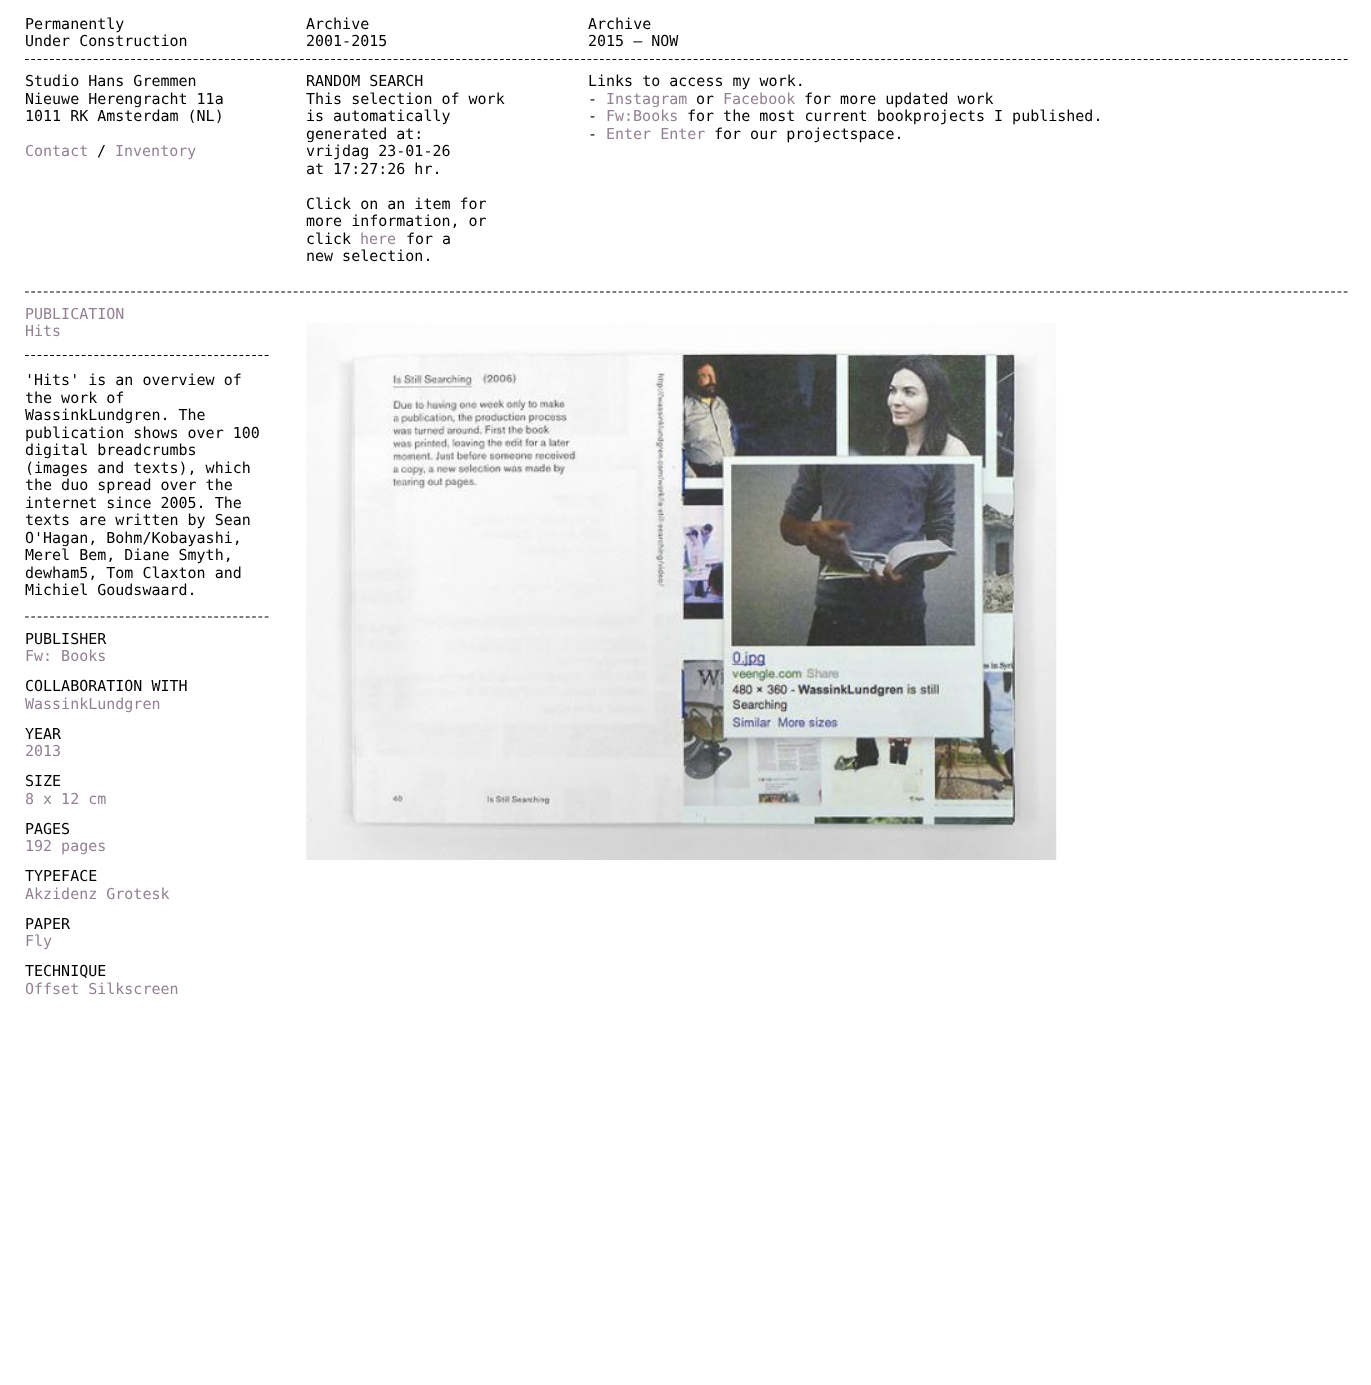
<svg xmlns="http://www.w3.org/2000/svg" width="1371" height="1385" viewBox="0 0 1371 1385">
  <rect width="100%" height="100%" fill="#ffffff"/>
  <text x="25" y="29" font-family="DejaVu Sans Mono" font-size="15" fill="#000000">Permanently</text>
  <text x="25" y="46" font-family="DejaVu Sans Mono" font-size="15" fill="#000000">Under Construction</text>
  <text x="306" y="29" font-family="DejaVu Sans Mono" font-size="15" fill="#000000">Archive</text>
  <text x="306" y="46" font-family="DejaVu Sans Mono" font-size="15" fill="#000000">2001-2015</text>
  <text x="588" y="29" font-family="DejaVu Sans Mono" font-size="15" fill="#000000">Archive</text>
  <text x="588" y="46" font-family="DejaVu Sans Mono" font-size="15" fill="#000000">2015 — NOW</text>
  <path d="M25 59.5H1349" fill="none" stroke="#000000" stroke-width="1.2" stroke-dasharray="3.75 2.5"/>
  <text x="25" y="86" font-family="DejaVu Sans Mono" font-size="15" fill="#000000">Studio Hans Gremmen</text>
  <text x="25" y="104" font-family="DejaVu Sans Mono" font-size="15" fill="#000000">Nieuwe Herengracht 11a</text>
  <text x="25" y="121" font-family="DejaVu Sans Mono" font-size="15" fill="#000000">1011 RK Amsterdam (NL)</text>
  <text x="25" y="156" font-family="DejaVu Sans Mono" font-size="15" fill="#938293">Contact</text>
  <text x="97" y="156" font-family="DejaVu Sans Mono" font-size="15" fill="#000000">/</text>
  <text x="115" y="156" font-family="DejaVu Sans Mono" font-size="15" fill="#938293">Inventory</text>
  <text x="306" y="86" font-family="DejaVu Sans Mono" font-size="15" fill="#000000">RANDOM SEARCH</text>
  <text x="306" y="104" font-family="DejaVu Sans Mono" font-size="15" fill="#000000">This selection of work</text>
  <text x="306" y="121" font-family="DejaVu Sans Mono" font-size="15" fill="#000000">is automatically</text>
  <text x="306" y="139" font-family="DejaVu Sans Mono" font-size="15" fill="#000000">generated at:</text>
  <text x="306" y="156" font-family="DejaVu Sans Mono" font-size="15" fill="#000000">vrijdag 23-01-26</text>
  <text x="306" y="174" font-family="DejaVu Sans Mono" font-size="15" fill="#000000">at 17:27:26 hr.</text>
  <text x="306" y="209" font-family="DejaVu Sans Mono" font-size="15" fill="#000000">Click on an item for</text>
  <text x="306" y="226" font-family="DejaVu Sans Mono" font-size="15" fill="#000000">more information, or</text>
  <text x="306" y="244" font-family="DejaVu Sans Mono" font-size="15" fill="#000000">click</text>
  <text x="360" y="244" font-family="DejaVu Sans Mono" font-size="15" fill="#938293">here</text>
  <text x="406" y="244" font-family="DejaVu Sans Mono" font-size="15" fill="#000000">for a</text>
  <text x="306" y="261" font-family="DejaVu Sans Mono" font-size="15" fill="#000000">new selection.</text>
  <text x="588" y="86" font-family="DejaVu Sans Mono" font-size="15" fill="#000000">Links to access my work.</text>
  <text x="588" y="104" font-family="DejaVu Sans Mono" font-size="15" fill="#000000">-</text>
  <text x="606" y="104" font-family="DejaVu Sans Mono" font-size="15" fill="#938293">Instagram</text>
  <text x="696" y="104" font-family="DejaVu Sans Mono" font-size="15" fill="#000000">or</text>
  <text x="723" y="104" font-family="DejaVu Sans Mono" font-size="15" fill="#938293">Facebook</text>
  <text x="804" y="104" font-family="DejaVu Sans Mono" font-size="15" fill="#000000">for more updated work</text>
  <text x="588" y="121" font-family="DejaVu Sans Mono" font-size="15" fill="#000000">-</text>
  <text x="606" y="121" font-family="DejaVu Sans Mono" font-size="15" fill="#938293">Fw:Books</text>
  <text x="687" y="121" font-family="DejaVu Sans Mono" font-size="15" fill="#000000">for the most current bookprojects I published.</text>
  <text x="588" y="139" font-family="DejaVu Sans Mono" font-size="15" fill="#000000">-</text>
  <text x="606" y="139" font-family="DejaVu Sans Mono" font-size="15" fill="#938293">Enter Enter</text>
  <text x="714" y="139" font-family="DejaVu Sans Mono" font-size="15" fill="#000000">for our projectspace.</text>
  <path d="M25 292H1349" fill="none" stroke="#000000" stroke-width="1.2" stroke-dasharray="3.75 2.5"/>
  <text x="25" y="319" font-family="DejaVu Sans Mono" font-size="15" fill="#938293">PUBLICATION</text>
  <text x="25" y="336" font-family="DejaVu Sans Mono" font-size="15" fill="#938293">Hits</text>
  <path d="M25 355.5H269" fill="none" stroke="#000000" stroke-width="1.2" stroke-dasharray="3.75 2.56"/>
  <text x="25" y="385" font-family="DejaVu Sans Mono" font-size="15" fill="#000000">'Hits' is an overview of</text>
  <text x="25" y="403" font-family="DejaVu Sans Mono" font-size="15" fill="#000000">the work of</text>
  <text x="25" y="420" font-family="DejaVu Sans Mono" font-size="15" fill="#000000">WassinkLundgren. The</text>
  <text x="25" y="438" font-family="DejaVu Sans Mono" font-size="15" fill="#000000">publication shows over 100</text>
  <text x="25" y="455" font-family="DejaVu Sans Mono" font-size="15" fill="#000000">digital breadcrumbs</text>
  <text x="25" y="473" font-family="DejaVu Sans Mono" font-size="15" fill="#000000">(images and texts), which</text>
  <text x="25" y="490" font-family="DejaVu Sans Mono" font-size="15" fill="#000000">the duo spread over the</text>
  <text x="25" y="508" font-family="DejaVu Sans Mono" font-size="15" fill="#000000">internet since 2005. The</text>
  <text x="25" y="525" font-family="DejaVu Sans Mono" font-size="15" fill="#000000">texts are written by Sean</text>
  <text x="25" y="543" font-family="DejaVu Sans Mono" font-size="15" fill="#000000">O'Hagan, Bohm/Kobayashi,</text>
  <text x="25" y="560" font-family="DejaVu Sans Mono" font-size="15" fill="#000000">Merel Bem, Diane Smyth,</text>
  <text x="25" y="578" font-family="DejaVu Sans Mono" font-size="15" fill="#000000">dewham5, Tom Claxton and</text>
  <text x="25" y="595" font-family="DejaVu Sans Mono" font-size="15" fill="#000000">Michiel Goudswaard.</text>
  <path d="M25 617H269" fill="none" stroke="#000000" stroke-width="1.2" stroke-dasharray="3.75 2.56"/>
  <text x="25" y="644" font-family="DejaVu Sans Mono" font-size="15" fill="#000000">PUBLISHER</text>
  <text x="25" y="661" font-family="DejaVu Sans Mono" font-size="15" fill="#938293">Fw: Books</text>
  <text x="25" y="691" font-family="DejaVu Sans Mono" font-size="15" fill="#000000">COLLABORATION WITH</text>
  <text x="25" y="709" font-family="DejaVu Sans Mono" font-size="15" fill="#938293">WassinkLundgren</text>
  <text x="25" y="739" font-family="DejaVu Sans Mono" font-size="15" fill="#000000">YEAR</text>
  <text x="25" y="756" font-family="DejaVu Sans Mono" font-size="15" fill="#938293">2013</text>
  <text x="25" y="786" font-family="DejaVu Sans Mono" font-size="15" fill="#000000">SIZE</text>
  <text x="25" y="804" font-family="DejaVu Sans Mono" font-size="15" fill="#938293">8 x 12 cm</text>
  <text x="25" y="834" font-family="DejaVu Sans Mono" font-size="15" fill="#000000">PAGES</text>
  <text x="25" y="851" font-family="DejaVu Sans Mono" font-size="15" fill="#938293">192 pages</text>
  <text x="25" y="881" font-family="DejaVu Sans Mono" font-size="15" fill="#000000">TYPEFACE</text>
  <text x="25" y="899" font-family="DejaVu Sans Mono" font-size="15" fill="#938293">Akzidenz Grotesk</text>
  <text x="25" y="929" font-family="DejaVu Sans Mono" font-size="15" fill="#000000">PAPER</text>
  <text x="25" y="946" font-family="DejaVu Sans Mono" font-size="15" fill="#938293">Fly</text>
  <text x="25" y="976" font-family="DejaVu Sans Mono" font-size="15" fill="#000000">TECHNIQUE</text>
  <text x="25" y="994" font-family="DejaVu Sans Mono" font-size="15" fill="#938293">Offset Silkscreen</text>
  <image x="306" y="323" width="751" height="537" href="img1.png"/>
</svg>
